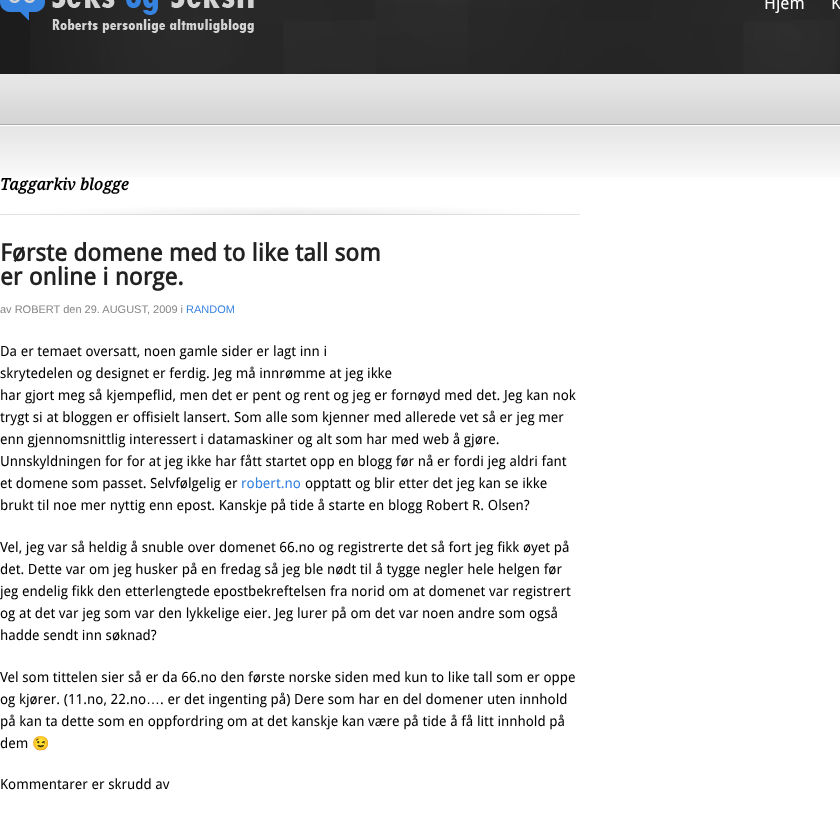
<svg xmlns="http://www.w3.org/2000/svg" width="840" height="830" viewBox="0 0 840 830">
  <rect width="100%" height="100%" fill="#ffffff"/>
  <rect x="0" y="2" width="30" height="72" fill="#1c1c1c"/>
  <image x="30" y="0" width="810" height="74" href="img1.png"/>
  <image x="0" y="0" width="254" height="33" href="img2.png"/>
  <text x="764" y="9" font-family="Droid Sans" font-size="17" fill="#ffffff">Hjem</text>
  <text x="831" y="9" font-family="Droid Sans" font-size="17" fill="#ffffff">K</text>
  <image x="0" y="74" width="840" height="50" href="img3.png"/>
  <rect x="0" y="124" width="840" height="1" fill="#aaaaaa"/>
  <image x="0" y="126" width="840" height="51" href="img4.png"/>
  <image x="0" y="207" width="580" height="8" href="img5.png"/>
  <text x="0" y="190" font-family="Droid Serif" font-size="16" font-weight="bold" font-style="italic" fill="#000000">Taggarkiv blogge</text>
  <text x="0" y="261" font-family="Droid Sans" font-size="24" font-weight="bold" fill="#222222">Første domene med to like tall som</text>
  <text x="0" y="285" font-family="Droid Sans" font-size="24" font-weight="bold" fill="#222222">er online i norge.</text>
  <text x="0" y="313" font-family="Liberation Sans" font-size="11" fill="#868686">av ROBERT den 29. AUGUST, 2009 i</text>
  <text x="186" y="313" font-family="Liberation Sans" font-size="11" fill="#3682df">RANDOM</text>
  <text x="0" y="356" font-family="Droid Sans" font-size="14" fill="#000000">Da er temaet oversatt, noen gamle sider er lagt inn i</text>
  <text x="0" y="378" font-family="Droid Sans" font-size="14" fill="#000000">skrytedelen og designet er ferdig. Jeg må innrømme at jeg ikke</text>
  <text x="0" y="400" font-family="Droid Sans" font-size="14" fill="#000000">har gjort meg så kjempeflid, men det er pent og rent og jeg er fornøyd med det. Jeg kan nok</text>
  <text x="0" y="422" font-family="Droid Sans" font-size="14" fill="#000000">trygt si at bloggen er offisielt lansert. Som alle som kjenner med allerede vet så er jeg mer</text>
  <text x="0" y="444" font-family="Droid Sans" font-size="14" fill="#000000">enn gjennomsnittlig interessert i datamaskiner og alt som har med web å gjøre.</text>
  <text x="0" y="466" font-family="Droid Sans" font-size="14" fill="#000000">Unnskyldningen for for at jeg ikke har fått startet opp en blogg før nå er fordi jeg aldri fant</text>
  <text x="0" y="488" font-family="Droid Sans" font-size="14" fill="#000000">et domene som passet. Selvfølgelig er</text>
  <text x="241" y="488" font-family="Droid Sans" font-size="14" fill="#3682df">robert.no</text>
  <text x="305" y="488" font-family="Droid Sans" font-size="14" fill="#000000">opptatt og blir etter det jeg kan se ikke</text>
  <text x="0" y="510" font-family="Droid Sans" font-size="14" fill="#000000">brukt til noe mer nyttig enn epost. Kanskje på tide å starte en blogg Robert R. Olsen?</text>
  <text x="0" y="552" font-family="Droid Sans" font-size="14" fill="#000000">Vel, jeg var så heldig å snuble over domenet 66.no og registrerte det så fort jeg fikk øyet på</text>
  <text x="0" y="574" font-family="Droid Sans" font-size="14" fill="#000000">det. Dette var om jeg husker på en fredag så jeg ble nødt til å tygge negler hele helgen før</text>
  <text x="0" y="596" font-family="Droid Sans" font-size="14" fill="#000000">jeg endelig fikk den etterlengtede epostbekreftelsen fra norid om at domenet var registrert</text>
  <text x="0" y="618" font-family="Droid Sans" font-size="14" fill="#000000">og at det var jeg som var den lykkelige eier. Jeg lurer på om det var noen andre som også</text>
  <text x="0" y="640" font-family="Droid Sans" font-size="14" fill="#000000">hadde sendt inn søknad?</text>
  <text x="0" y="682" font-family="Droid Sans" font-size="14" fill="#000000">Vel som tittelen sier så er da 66.no den første norske siden med kun to like tall som er oppe</text>
  <text x="0" y="704" font-family="Droid Sans" font-size="14" fill="#000000">og kjører. (11.no, 22.no</text>
  <text x="146" y="704" font-family="Liberation Sans" font-size="14" fill="#000000">…</text>
  <text x="160" y="704" font-family="Droid Sans" font-size="14" fill="#000000">. er det ingenting på) Dere som har en del domener uten innhold</text>
  <text x="0" y="726" font-family="Droid Sans" font-size="14" fill="#000000">på kan ta dette som en oppfordring om at det kanskje kan være på tide å få litt innhold på</text>
  <text x="0" y="748" font-family="Droid Sans" font-size="14" fill="#000000">dem</text>
  <text x="32" y="748" font-family="Noto Color Emoji" font-size="14" fill="#000000">😉</text>
  <text x="0" y="789" font-family="Droid Sans" font-size="14" fill="#000000">Kommentarer er skrudd av</text>
</svg>
